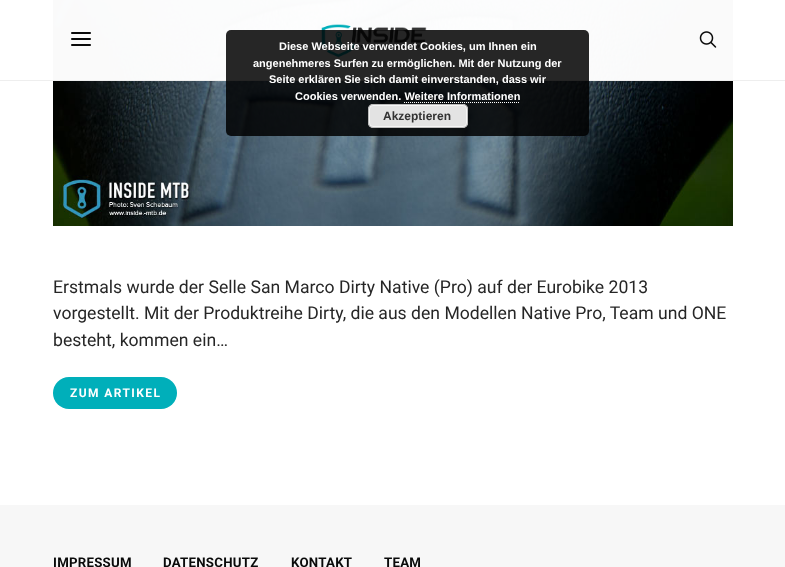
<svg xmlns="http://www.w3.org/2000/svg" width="785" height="567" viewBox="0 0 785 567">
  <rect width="100%" height="100%" fill="#ffffff"/>
  <image x="53" y="0" width="680" height="226" href="img4.png"/>
  <rect x="53" y="0" width="680" height="80" fill="#ffffff" fill-opacity="0.98"/>
  <rect x="0" y="80" width="785" height="1" fill="#eeeeee"/>
  <image x="321" y="24" width="106" height="34" href="img2.png"/>
  <rect x="226" y="30" width="363" height="106" rx="5" fill="#000000" fill-opacity="0.85"/>
  <text x="279" y="50" font-family="Liberation Sans" font-size="11" font-weight="bold" fill="#ffffff">Diese Webseite verwendet Cookies, um Ihnen ein</text>
  <text x="253" y="67" font-family="Liberation Sans" font-size="11" font-weight="bold" fill="#ffffff">angenehmeres Surfen zu ermöglichen. Mit der Nutzung der</text>
  <text x="269" y="83" font-family="Liberation Sans" font-size="11" font-weight="bold" fill="#ffffff">Seite erklären Sie sich damit einverstanden, dass wir</text>
  <text x="295" y="100" font-family="Liberation Sans" font-size="11" font-weight="bold" fill="#ffffff">Cookies verwenden. Weitere Informationen</text>
  <path d="M404 102.5H520" fill="none" stroke="#ffffff" stroke-dasharray="1 1"/>
  <rect x="368" y="104" width="100" height="24" rx="5" fill="#e3e3e3"/>
  <rect x="369.5" y="105.5" width="97" height="21" rx="3.5" fill="none" stroke="#f6f6f6"/>
  <rect x="368.5" y="104.5" width="99" height="23" rx="4.5" fill="none" stroke="#bbbbbb"/>
  <text x="383" y="120" font-family="Liberation Sans" font-size="12" font-weight="bold" fill="#333333">Akzeptieren</text>
  <image x="71" y="32" width="20" height="14" href="img1.png"/>
  <image x="699" y="31" width="18" height="17" href="img3.png"/>
  <text x="53" y="293" font-family="Roboto" font-size="17.6" fill="#262626">Erstmals wurde der Selle San Marco Dirty Native (Pro) auf der Eurobike 2013</text>
  <text x="53" y="319" font-family="Roboto" font-size="17.6" fill="#262626">vorgestellt. Mit der Produktreihe Dirty, die aus den Modellen Native Pro, Team und ONE</text>
  <text x="53" y="346" font-family="Roboto" font-size="17.6" fill="#262626">besteht, kommen ein…</text>
  <rect x="53" y="377" width="124" height="32" rx="16" fill="#00afba"/>
  <text x="70" y="397" font-family="Roboto" font-size="12" font-weight="bold" letter-spacing="1.4" fill="#ffffff">ZUM ARTIKEL</text>
  <rect x="0" y="505" width="785" height="62" fill="#f7f7f7"/>
  <text x="53" y="567" font-family="Roboto" font-size="13.25" font-weight="bold" letter-spacing="0.25" fill="#0a0a0a">IMPRESSUM</text>
  <text x="163" y="567" font-family="Roboto" font-size="13.25" font-weight="bold" letter-spacing="0.25" fill="#0a0a0a">DATENSCHUTZ</text>
  <text x="291" y="567" font-family="Roboto" font-size="13.25" font-weight="bold" letter-spacing="0.25" fill="#0a0a0a">KONTAKT</text>
  <text x="384" y="567" font-family="Roboto" font-size="13.25" font-weight="bold" letter-spacing="0.25" fill="#0a0a0a">TEAM</text>
</svg>
